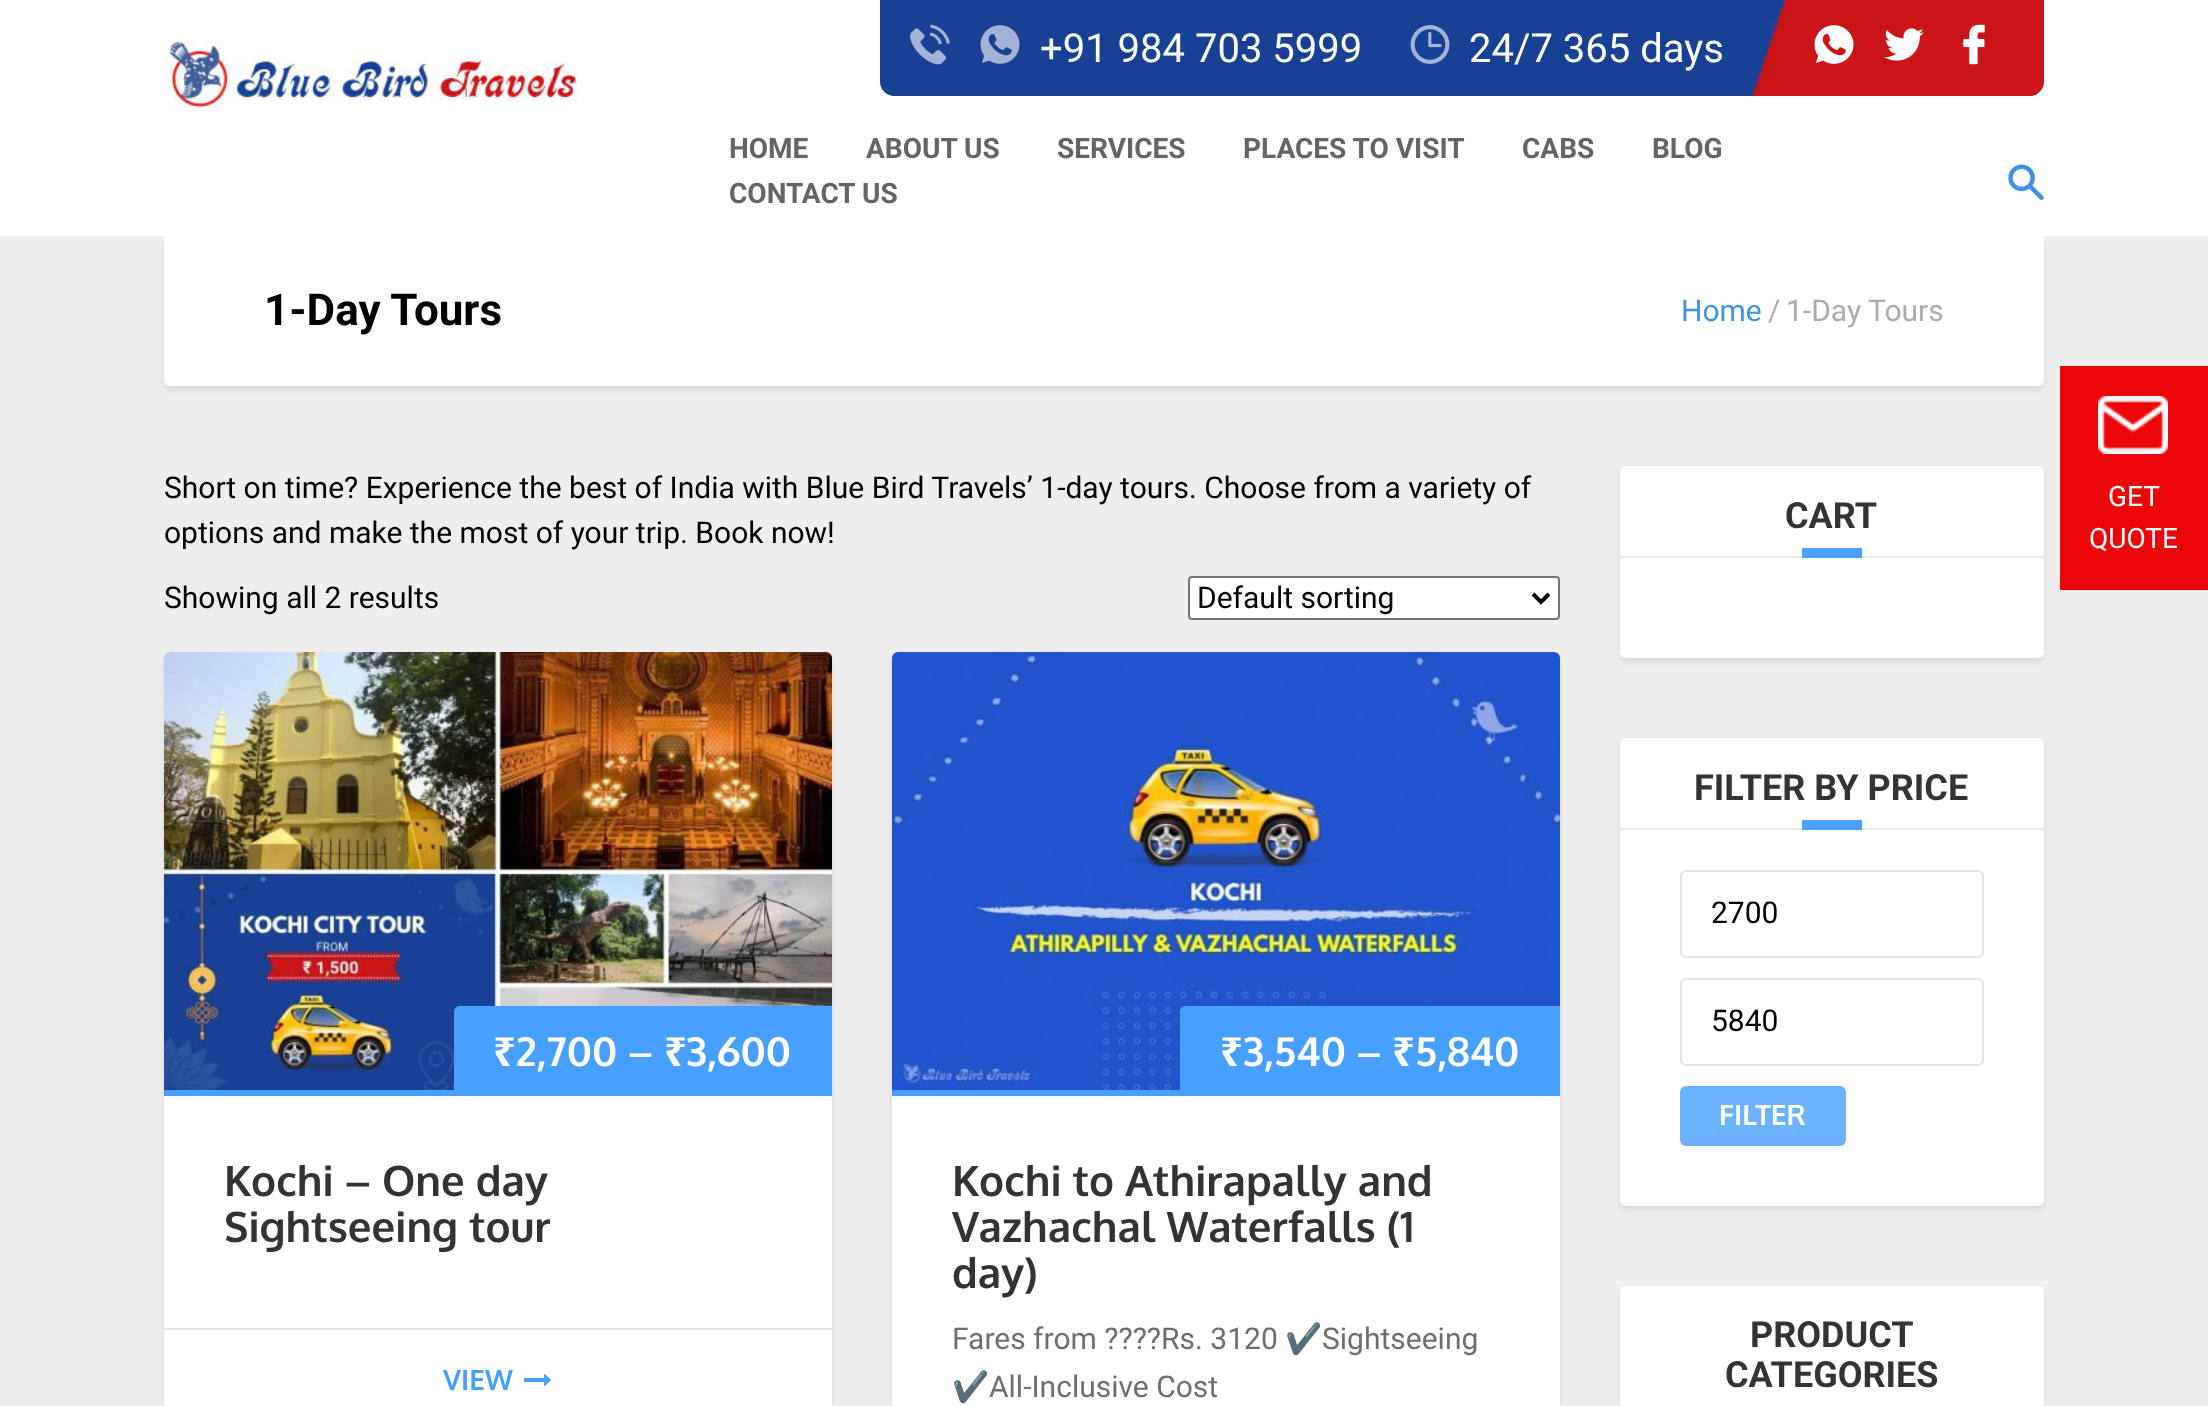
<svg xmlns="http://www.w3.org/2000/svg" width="2208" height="1406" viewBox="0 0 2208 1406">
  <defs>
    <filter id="blur1" x="-50%" y="-200%" width="200%" height="500%"><feGaussianBlur stdDeviation="3"/></filter>
  </defs>
  <rect width="100%" height="100%" fill="#eeeeee"/>
  <rect x="0" y="0" width="2208" height="236" fill="#ffffff"/>
  <image x="164" y="40" width="414" height="71" href="img1.png"/>
  <path d="M880 0H1784V96H894C886.5 96 880 89.5 880 82Z" fill="#184195"/>
  <image x="910" y="24" width="40" height="41" href="img2.png"/>
  <image x="980" y="25" width="40" height="39" href="img3.png"/>
  <text x="1040" y="62" font-family="Roboto" font-size="40" fill="#ffffff">+91 984 703 5999</text>
  <image x="1410" y="25" width="40" height="39" href="img4.png"/>
  <text x="1469" y="62" font-family="Roboto" font-size="40" fill="#ffffff">24/7 365 days</text>
  <path d="M1784 0H2044V82C2044 89.5 2037.5 96 2030 96H1784Z" fill="#ca1417"/>
  <image x="1744" y="0" width="48" height="96" href="img5.png"/>
  <image x="1814" y="25" width="40" height="39" href="img6.png"/>
  <image x="1884" y="28" width="40" height="33" href="img7.png"/>
  <image x="1963" y="24" width="22" height="41" href="img8.png"/>
  <text x="729" y="158" font-family="Roboto" font-size="28" font-weight="bold" fill="#636467">HOME</text>
  <text x="866" y="158" font-family="Roboto" font-size="28" font-weight="bold" fill="#636467">ABOUT US</text>
  <text x="1057" y="158" font-family="Roboto" font-size="28" font-weight="bold" fill="#636467">SERVICES</text>
  <text x="1243" y="158" font-family="Roboto" font-size="28" font-weight="bold" fill="#636467">PLACES TO VISIT</text>
  <text x="1522" y="158" font-family="Roboto" font-size="28" font-weight="bold" fill="#636467">CABS</text>
  <text x="1652" y="158" font-family="Roboto" font-size="28" font-weight="bold" fill="#636467">BLOG</text>
  <text x="729" y="203" font-family="Roboto" font-size="28" font-weight="bold" fill="#636467">CONTACT US</text>
  <image x="2008" y="164" width="36" height="36" href="img9.png"/>
  <rect x="164" y="240" width="1880" height="150" rx="6" fill="#000000" fill-opacity="0.09" filter="url(#blur1)"/>
  <path d="M164 236H2044V380C2044 383.5 2041.5 386 2038 386H170C166.5 386 164 383.5 164 380Z" fill="#ffffff"/>
  <text x="264" y="325" font-family="Roboto" font-size="44" font-weight="bold" fill="#000000">1-Day Tours</text>
  <text x="1681" y="321" font-family="Roboto" font-size="30" fill="#4090e5">Home</text>
  <text x="1768" y="321" font-family="Roboto" font-size="30" fill="#ababab">/</text>
  <text x="1786" y="321" font-family="Roboto" font-size="30" fill="#ababab">1-Day Tours</text>
  <text x="164" y="498" font-family="Roboto" font-size="30" fill="#000000">Short on time? Experience the best of India with Blue Bird Travels’ 1-day tours. Choose from a variety of</text>
  <text x="164" y="543" font-family="Roboto" font-size="30" fill="#000000">options and make the most of your trip. Book now!</text>
  <text x="164" y="608" font-family="Roboto" font-size="30" fill="#000000">Showing all 2 results</text>
  <rect x="1189" y="577" width="370" height="42" rx="3" fill="#ffffff" stroke="#767676" stroke-width="2"/>
  <path d="M1533 594L1541 602L1549 594" fill="none" stroke="#000000" stroke-width="4"/>
  <text x="1197" y="608" font-family="Roboto" font-size="30" fill="#000000">Default sorting</text>
  <rect x="164" y="656" width="668" height="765" rx="6" fill="#000000" fill-opacity="0.09" filter="url(#blur1)"/>
  <rect x="164" y="652" width="668" height="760" rx="6" fill="#ffffff"/>
  <image x="164" y="652" width="668" height="438" href="img10.png"/>
  <path d="M460 1006H832V1096H454V1012C454 1008.5 456.5 1006 460 1006Z" fill="#47a0ff"/>
  <text x="493" y="1066" font-family="Noto Sans" font-size="40" font-weight="bold" fill="#ffffff">₹</text>
  <text x="516" y="1066" font-family="Oxygen" font-size="40" font-weight="bold" fill="#ffffff">2,700 –</text>
  <text x="664" y="1066" font-family="Noto Sans" font-size="40" font-weight="bold" fill="#ffffff">₹</text>
  <text x="686" y="1066" font-family="Oxygen" font-size="40" font-weight="bold" fill="#ffffff">3,600</text>
  <rect x="164" y="1090" width="290" height="6" fill="#47a0ff"/>
  <text x="224" y="1196" font-family="Oxygen" font-size="42" font-weight="bold" fill="#333333">Kochi – One day</text>
  <text x="224" y="1242" font-family="Oxygen" font-size="42" font-weight="bold" fill="#333333">Sightseeing tour</text>
  <rect x="164" y="1328" width="668" height="2" fill="#e4e4e4"/>
  <text x="443" y="1390" font-family="Oxygen" font-size="28" font-weight="bold" fill="#47a0ff">VIEW</text>
  <image x="524" y="1374" width="27" height="12" href="img11.png"/>
  <rect x="892" y="656" width="668" height="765" rx="6" fill="#000000" fill-opacity="0.09" filter="url(#blur1)"/>
  <rect x="892" y="652" width="668" height="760" rx="6" fill="#ffffff"/>
  <image x="892" y="652" width="668" height="438" href="img12.png"/>
  <path d="M1186 1006H1560V1096H1180V1012C1180 1008.5 1182.5 1006 1186 1006Z" fill="#47a0ff"/>
  <text x="1220" y="1066" font-family="Noto Sans" font-size="40" font-weight="bold" fill="#ffffff">₹</text>
  <text x="1243" y="1066" font-family="Oxygen" font-size="40" font-weight="bold" fill="#ffffff">3,540 –</text>
  <text x="1392" y="1066" font-family="Noto Sans" font-size="40" font-weight="bold" fill="#ffffff">₹</text>
  <text x="1415" y="1066" font-family="Oxygen" font-size="40" font-weight="bold" fill="#ffffff">5,840</text>
  <rect x="892" y="1090" width="288" height="6" fill="#47a0ff"/>
  <text x="952" y="1196" font-family="Oxygen" font-size="42" font-weight="bold" fill="#333333">Kochi to Athirapally and</text>
  <text x="952" y="1242" font-family="Oxygen" font-size="42" font-weight="bold" fill="#333333">Vazhachal Waterfalls (1</text>
  <text x="952" y="1288" font-family="Oxygen" font-size="42" font-weight="bold" fill="#333333">day)</text>
  <text x="952" y="1349" font-family="Roboto" font-size="30" fill="#6e6e6e">Fares from ????Rs. 3120</text>
  <text x="1285" y="1349" font-family="Noto Color Emoji" font-size="30" fill="#6e6e6e">✔️</text>
  <text x="1322" y="1349" font-family="Roboto" font-size="30" fill="#6e6e6e">Sightseeing</text>
  <text x="952" y="1397" font-family="Noto Color Emoji" font-size="30" fill="#6e6e6e">✔️</text>
  <text x="989" y="1397" font-family="Roboto" font-size="30" fill="#6e6e6e">All-Inclusive Cost</text>
  <rect x="1620" y="470" width="424" height="192" rx="6" fill="#000000" fill-opacity="0.09" filter="url(#blur1)"/>
  <rect x="1620" y="466" width="424" height="192" rx="6" fill="#ffffff"/>
  <rect x="1620" y="556" width="424" height="2" fill="#e9e9e9"/>
  <text x="1785" y="528" font-family="Roboto" font-size="36" font-weight="bold" fill="#333333">CART</text>
  <rect x="1802" y="548" width="60" height="10" fill="#47a0ff"/>
  <rect x="1620" y="742" width="424" height="468" rx="6" fill="#000000" fill-opacity="0.09" filter="url(#blur1)"/>
  <rect x="1620" y="738" width="424" height="468" rx="6" fill="#ffffff"/>
  <rect x="1620" y="828" width="424" height="2" fill="#e9e9e9"/>
  <text x="1694" y="800" font-family="Roboto" font-size="36" font-weight="bold" fill="#333333">FILTER BY PRICE</text>
  <rect x="1802" y="820" width="60" height="10" fill="#47a0ff"/>
  <rect x="1681" y="871" width="302" height="86" rx="5" fill="none" stroke="#e3e3e3" stroke-width="2"/>
  <text x="1711" y="923" font-family="Roboto" font-size="30" fill="#000000">2700</text>
  <rect x="1681" y="979" width="302" height="86" rx="5" fill="none" stroke="#e3e3e3" stroke-width="2"/>
  <text x="1711" y="1031" font-family="Roboto" font-size="30" fill="#000000">5840</text>
  <rect x="1680" y="1086" width="166" height="60" rx="6" fill="#6cb3ff"/>
  <text x="1719" y="1125" font-family="Oxygen" font-size="28" font-weight="bold" fill="#ffffff">FILTER</text>
  <rect x="1620" y="1290" width="424" height="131" rx="6" fill="#000000" fill-opacity="0.09" filter="url(#blur1)"/>
  <rect x="1620" y="1286" width="424" height="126" rx="6" fill="#ffffff"/>
  <text x="1750" y="1347" font-family="Roboto" font-size="36" font-weight="bold" fill="#333333">PRODUCT</text>
  <text x="1725" y="1387" font-family="Roboto" font-size="36" font-weight="bold" fill="#333333">CATEGORIES</text>
  <rect x="2060" y="366" width="148" height="224" fill="#ec0609"/>
  <image x="2098" y="396" width="70" height="58" href="img13.png"/>
  <text x="2108" y="506" font-family="Roboto" font-size="28" fill="#ffffff">GET</text>
  <text x="2089" y="548" font-family="Roboto" font-size="28" fill="#ffffff">QUOTE</text>
</svg>
